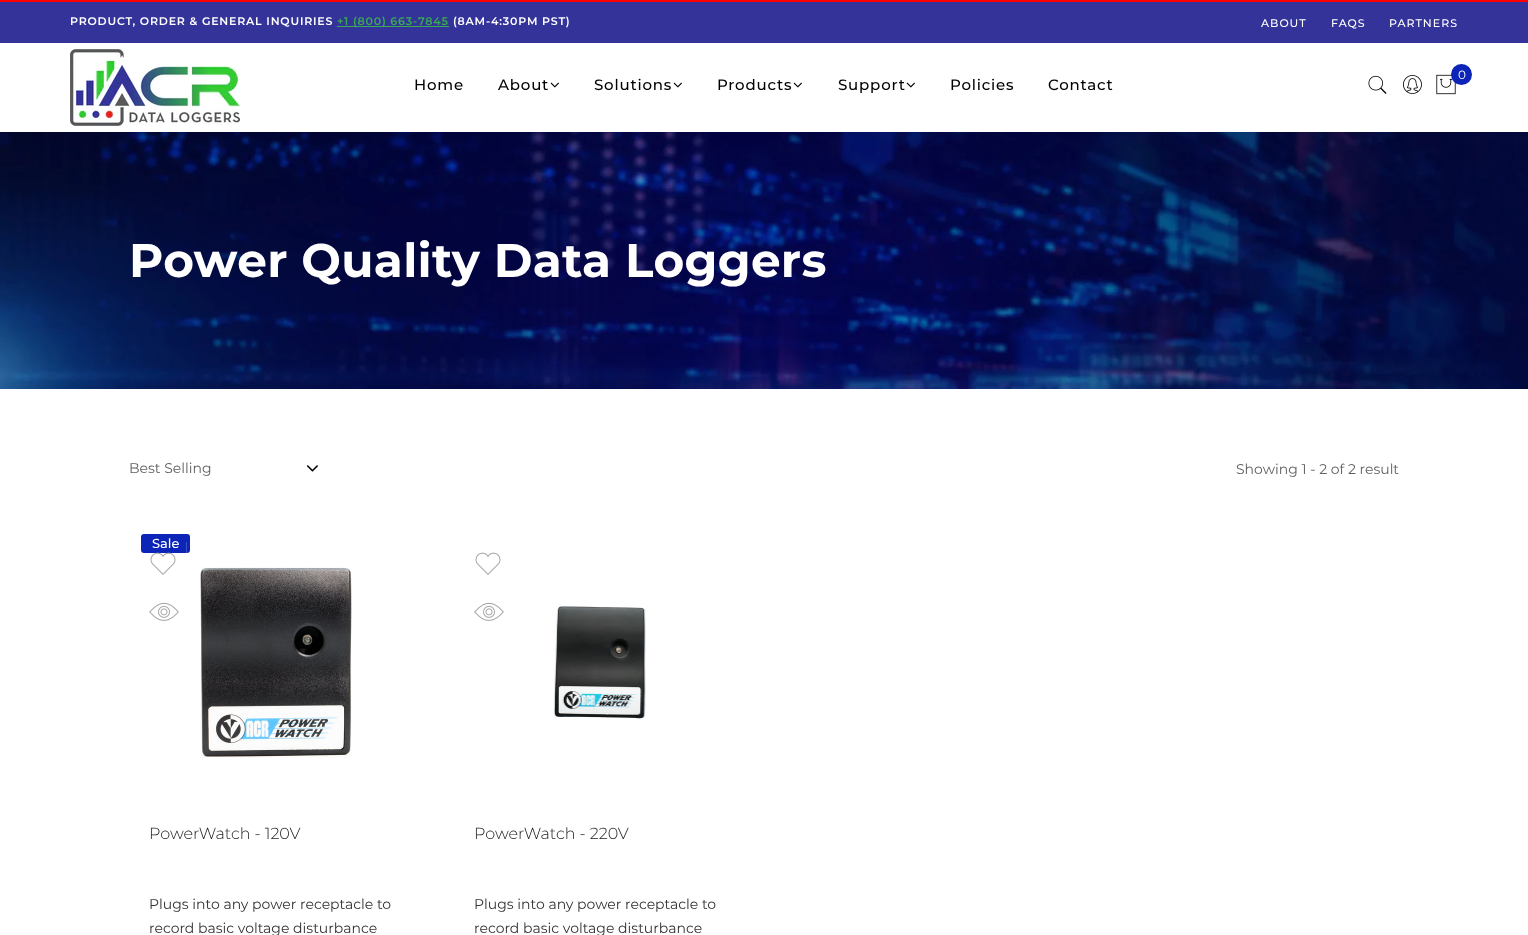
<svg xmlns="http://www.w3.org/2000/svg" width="1528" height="935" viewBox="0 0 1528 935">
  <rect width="100%" height="100%" fill="#ffffff"/>
  <rect x="0" y="0" width="1528" height="2" fill="#ff0000"/>
  <rect x="0" y="2" width="1528" height="41" fill="#34339a"/>
  <text x="70" y="25" font-family="Montserrat" font-size="11" font-weight="600" letter-spacing="0.8" fill="#ffffff">PRODUCT, ORDER &amp; GENERAL INQUIRIES</text>
  <rect x="337" y="26" width="112" height="1" fill="#39ab50"/>
  <text x="337" y="25" font-family="Montserrat" font-size="11" font-weight="600" letter-spacing="0.8" fill="#39ab50">+1 (800) 663-7845</text>
  <text x="453" y="25" font-family="Montserrat" font-size="11" font-weight="600" letter-spacing="0.8" fill="#ffffff">(8AM-4:30PM PST)</text>
  <text x="1261" y="27" font-family="Montserrat" font-size="11" font-weight="500" letter-spacing="1" fill="#ffffff">ABOUT</text>
  <text x="1331" y="27" font-family="Montserrat" font-size="11" font-weight="500" letter-spacing="1" fill="#ffffff">FAQS</text>
  <text x="1389" y="27" font-family="Montserrat" font-size="11" font-weight="500" letter-spacing="1" fill="#ffffff">PARTNERS</text>
  <image x="70" y="49" width="170" height="77" href="img1.png"/>
  <image x="1368" y="75" width="19" height="19" href="img2.png"/>
  <image x="1403" y="75" width="19" height="19" href="img3.png"/>
  <image x="1436" y="74" width="20" height="21" href="img4.png"/>
  <circle cx="1461.5" cy="74.5" r="10.5" fill="#0c25b8"/>
  <text x="1458" y="79" font-family="Montserrat" font-size="12" fill="#ffffff">0</text>
  <text x="414" y="90" font-family="Montserrat" font-size="15" font-weight="500" letter-spacing="0.8" fill="#000000">Home</text>
  <text x="498" y="90" font-family="Montserrat" font-size="15" font-weight="500" letter-spacing="0.8" fill="#000000">About</text>
  <image x="550" y="82" width="9" height="6" href="img5.png"/>
  <text x="594" y="90" font-family="Montserrat" font-size="15" font-weight="500" letter-spacing="0.8" fill="#000000">Solutions</text>
  <image x="673" y="82" width="9" height="6" href="img5.png"/>
  <text x="717" y="90" font-family="Montserrat" font-size="15" font-weight="500" letter-spacing="0.8" fill="#000000">Products</text>
  <image x="793" y="82" width="9" height="6" href="img5.png"/>
  <text x="838" y="90" font-family="Montserrat" font-size="15" font-weight="500" letter-spacing="0.8" fill="#000000">Support</text>
  <image x="906" y="82" width="9" height="6" href="img5.png"/>
  <text x="950" y="90" font-family="Montserrat" font-size="15" font-weight="500" letter-spacing="0.8" fill="#000000">Policies</text>
  <text x="1048" y="90" font-family="Montserrat" font-size="15" font-weight="500" letter-spacing="0.8" fill="#000000">Contact</text>
  <image x="0" y="132" width="1528" height="257" href="img6.png"/>
  <text x="129" y="277" font-family="Montserrat" font-size="47" font-weight="bold" letter-spacing="0.3" fill="#ffffff">Power Quality Data Loggers</text>
  <text x="129" y="473" font-family="Montserrat" font-size="14" fill="#606060">Best Selling</text>
  <image x="306" y="465" width="12" height="7" href="img7.png"/>
  <text x="1236" y="474" font-family="Montserrat" font-size="14" fill="#606060">Showing 1 - 2 of 2 result</text>
  <rect x="141" y="534" width="49" height="19" rx="3" fill="#0c25b8"/>
  <rect x="186" y="542" width="1" height="11" fill="#3d51c6"/>
  <text x="152" y="548" font-family="Montserrat" font-size="13" font-weight="500" fill="#ffffff">Sale</text>
  <image x="150" y="552" width="26" height="23" href="img8.png"/>
  <image x="149" y="602" width="30" height="19" href="img9.png"/>
  <image x="200" y="566" width="152" height="192" href="img10.png"/>
  <text x="149" y="839" font-family="Montserrat" font-size="16" font-weight="300" fill="#1a1b1f">PowerWatch - 120V</text>
  <text x="149" y="909" font-family="Montserrat" font-size="14" fill="#333333">Plugs into any power receptacle to</text>
  <text x="149" y="933" font-family="Montserrat" font-size="14" fill="#333333">record basic voltage disturbance</text>
  <image x="475" y="552" width="26" height="23" href="img11.png"/>
  <image x="474" y="602" width="30" height="19" href="img9.png"/>
  <image x="553" y="606" width="93" height="113" href="img12.png"/>
  <text x="474" y="839" font-family="Montserrat" font-size="16" font-weight="300" fill="#1a1b1f">PowerWatch - 220V</text>
  <text x="474" y="909" font-family="Montserrat" font-size="14" fill="#333333">Plugs into any power receptacle to</text>
  <text x="474" y="933" font-family="Montserrat" font-size="14" fill="#333333">record basic voltage disturbance</text>
</svg>
